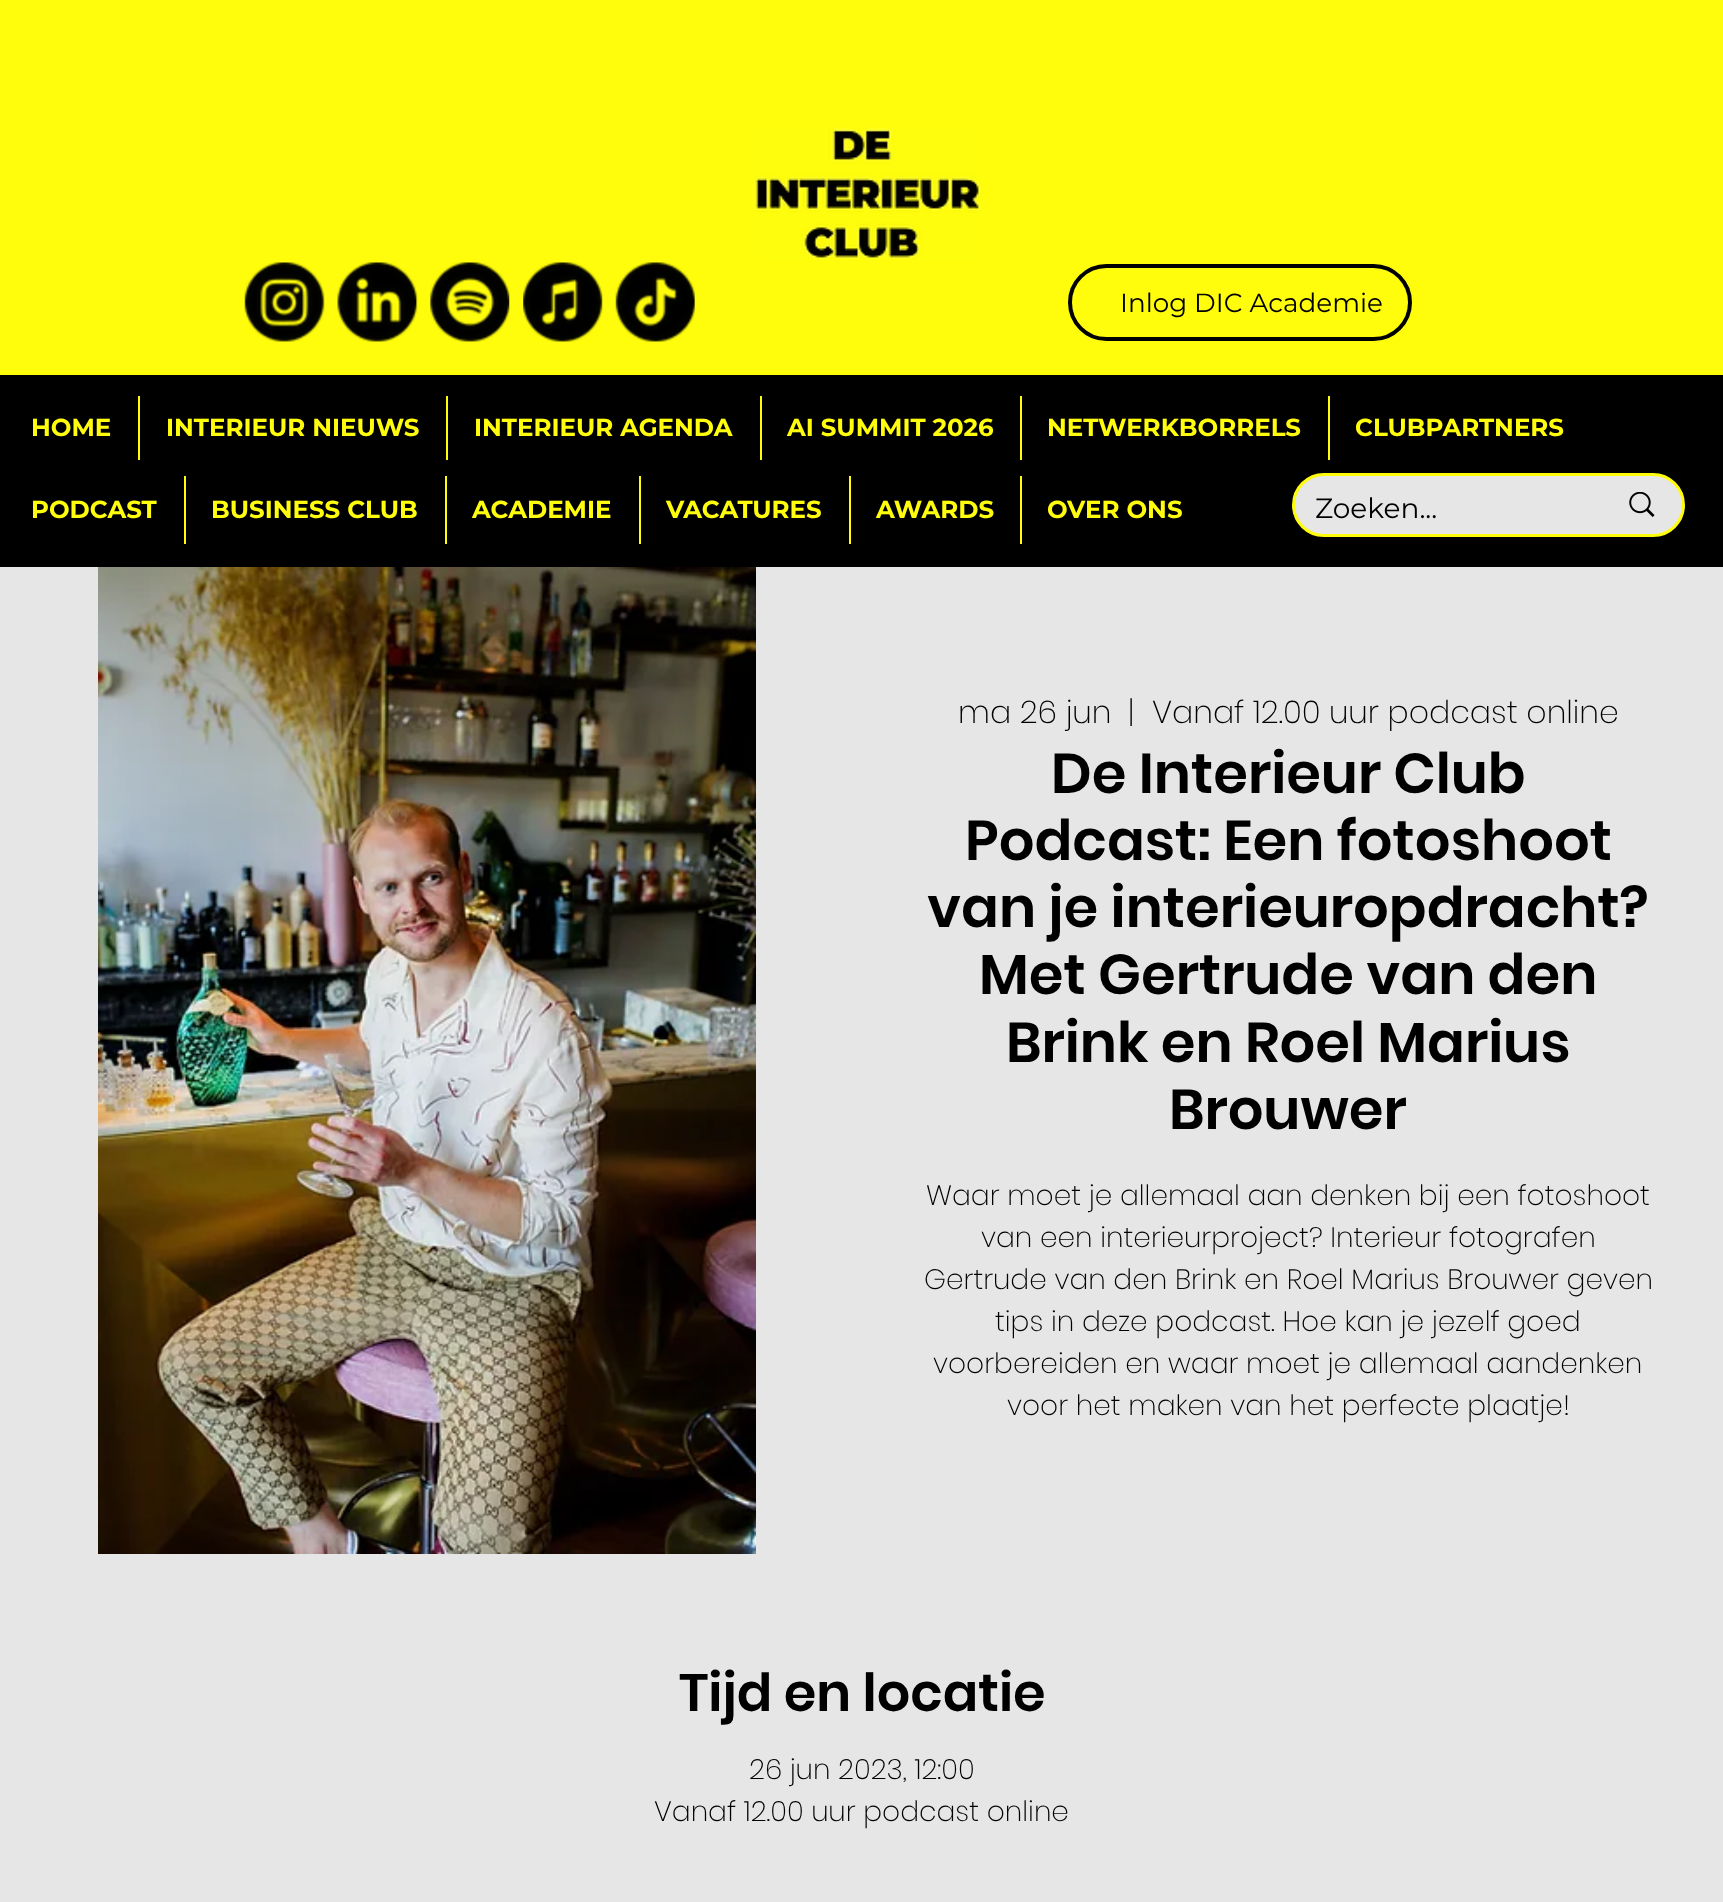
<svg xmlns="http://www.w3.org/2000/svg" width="1723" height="1902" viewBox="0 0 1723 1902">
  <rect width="100%" height="100%" fill="#e5e6e5"/>
  <rect x="0" y="0" width="1723" height="375" fill="#fffd0b"/>
  <image x="754" y="127" width="227" height="133" href="img1.png"/>
  <image x="244" y="262" width="81" height="80" href="img2.png"/>
  <image x="337" y="262" width="81" height="80" href="img3.png"/>
  <image x="430" y="262" width="80" height="80" href="img4.png"/>
  <image x="523" y="262" width="80" height="80" href="img5.png"/>
  <image x="615" y="262" width="80" height="80" href="img6.png"/>
  <rect x="1070" y="266" width="340" height="73" rx="36.5" fill="none" stroke="#000000" stroke-width="4"/>
  <text x="1120" y="312" font-family="Montserrat" font-size="26.25" fill="#000000">Inlog DIC Academie</text>
  <rect x="0" y="375" width="1723" height="192" fill="#000000"/>
  <text x="31" y="436" font-family="Montserrat" font-size="24.5" font-weight="bold" fill="#fffd0b">HOME</text>
  <rect x="138" y="396" width="2" height="64" fill="#fffd0b"/>
  <text x="166" y="436" font-family="Montserrat" font-size="24.5" font-weight="bold" fill="#fffd0b">INTERIEUR NIEUWS</text>
  <rect x="446" y="396" width="2" height="64" fill="#fffd0b"/>
  <text x="474" y="436" font-family="Montserrat" font-size="24.5" font-weight="bold" fill="#fffd0b">INTERIEUR AGENDA</text>
  <rect x="760" y="396" width="2" height="64" fill="#fffd0b"/>
  <text x="787" y="436" font-family="Montserrat" font-size="24.5" font-weight="bold" fill="#fffd0b">AI SUMMIT 2026</text>
  <rect x="1020" y="396" width="2" height="64" fill="#fffd0b"/>
  <text x="1047" y="436" font-family="Montserrat" font-size="24.5" font-weight="bold" fill="#fffd0b">NETWERKBORRELS</text>
  <rect x="1328" y="396" width="2" height="64" fill="#fffd0b"/>
  <text x="1355" y="436" font-family="Montserrat" font-size="24.5" font-weight="bold" fill="#fffd0b">CLUBPARTNERS</text>
  <text x="31" y="518" font-family="Montserrat" font-size="24.5" font-weight="bold" fill="#fffd0b">PODCAST</text>
  <rect x="184" y="476" width="2" height="68" fill="#fffd0b"/>
  <text x="211" y="518" font-family="Montserrat" font-size="24.5" font-weight="bold" fill="#fffd0b">BUSINESS CLUB</text>
  <rect x="445" y="476" width="2" height="68" fill="#fffd0b"/>
  <text x="472" y="518" font-family="Montserrat" font-size="24.5" font-weight="bold" fill="#fffd0b">ACADEMIE</text>
  <rect x="639" y="476" width="2" height="68" fill="#fffd0b"/>
  <text x="666" y="518" font-family="Montserrat" font-size="24.5" font-weight="bold" fill="#fffd0b">VACATURES</text>
  <rect x="849" y="476" width="2" height="68" fill="#fffd0b"/>
  <text x="876" y="518" font-family="Montserrat" font-size="24.5" font-weight="bold" fill="#fffd0b">AWARDS</text>
  <rect x="1020" y="476" width="2" height="68" fill="#fffd0b"/>
  <text x="1047" y="518" font-family="Montserrat" font-size="24.5" font-weight="bold" fill="#fffd0b">OVER ONS</text>
  <rect x="1294" y="475" width="389" height="60" rx="30" fill="none" stroke="#fffd0b" stroke-width="4"/>
  <rect x="1295" y="476" width="387" height="58" rx="29" fill="#e5e6e5"/>
  <text x="1315" y="518" font-family="Montserrat" font-size="28" fill="#000000">Zoeken...</text>
  <image x="1629" y="492" width="26" height="25" href="img7.png"/>
  <image x="98" y="567" width="658" height="987" href="img8.png"/>
  <text x="958" y="723" font-family="Poppins" font-size="31.5" font-weight="200" fill="#000000">ma 26 jun</text>
  <text x="1128" y="723" font-family="Poppins" font-size="31.5" font-weight="200" fill="#000000">|</text>
  <text x="1152" y="723" font-family="Poppins" font-size="31.5" font-weight="200" fill="#000000">Vanaf 12.00 uur podcast online</text>
  <text x="1051" y="793" font-family="Poppins" font-size="56" font-weight="600" fill="#000000">De Interieur Club</text>
  <text x="965" y="860" font-family="Poppins" font-size="56" font-weight="600" fill="#000000">Podcast: Een fotoshoot</text>
  <text x="927" y="927" font-family="Poppins" font-size="56" font-weight="600" fill="#000000">van je interieuropdracht?</text>
  <text x="979" y="994" font-family="Poppins" font-size="56" font-weight="600" fill="#000000">Met Gertrude van den</text>
  <text x="1006" y="1062" font-family="Poppins" font-size="56" font-weight="600" fill="#000000">Brink en Roel Marius</text>
  <text x="1169" y="1129" font-family="Poppins" font-size="56" font-weight="600" fill="#000000">Brouwer</text>
  <text x="926" y="1205" font-family="Poppins" font-size="28" font-weight="200" fill="#000000">Waar moet je allemaal aan denken bij een fotoshoot</text>
  <text x="981" y="1247" font-family="Poppins" font-size="28" font-weight="200" fill="#000000">van een interieurproject? Interieur fotografen</text>
  <text x="924" y="1289" font-family="Poppins" font-size="28" font-weight="200" fill="#000000">Gertrude van den Brink en Roel Marius Brouwer geven</text>
  <text x="995" y="1331" font-family="Poppins" font-size="28" font-weight="200" fill="#000000">tips in deze podcast. Hoe kan je jezelf goed</text>
  <text x="933" y="1373" font-family="Poppins" font-size="28" font-weight="200" fill="#000000">voorbereiden en waar moet je allemaal aandenken</text>
  <text x="1007" y="1415" font-family="Poppins" font-size="28" font-weight="200" fill="#000000">voor het maken van het perfecte plaatje!</text>
  <text x="679" y="1711" font-family="Poppins" font-size="52.5" font-weight="600" fill="#000000">Tijd en locatie</text>
  <text x="749" y="1779" font-family="Poppins" font-size="28" font-weight="200" fill="#000000">26 jun 2023, 12:00</text>
  <text x="654" y="1821" font-family="Poppins" font-size="28" font-weight="200" fill="#000000">Vanaf 12.00 uur podcast online</text>
</svg>
